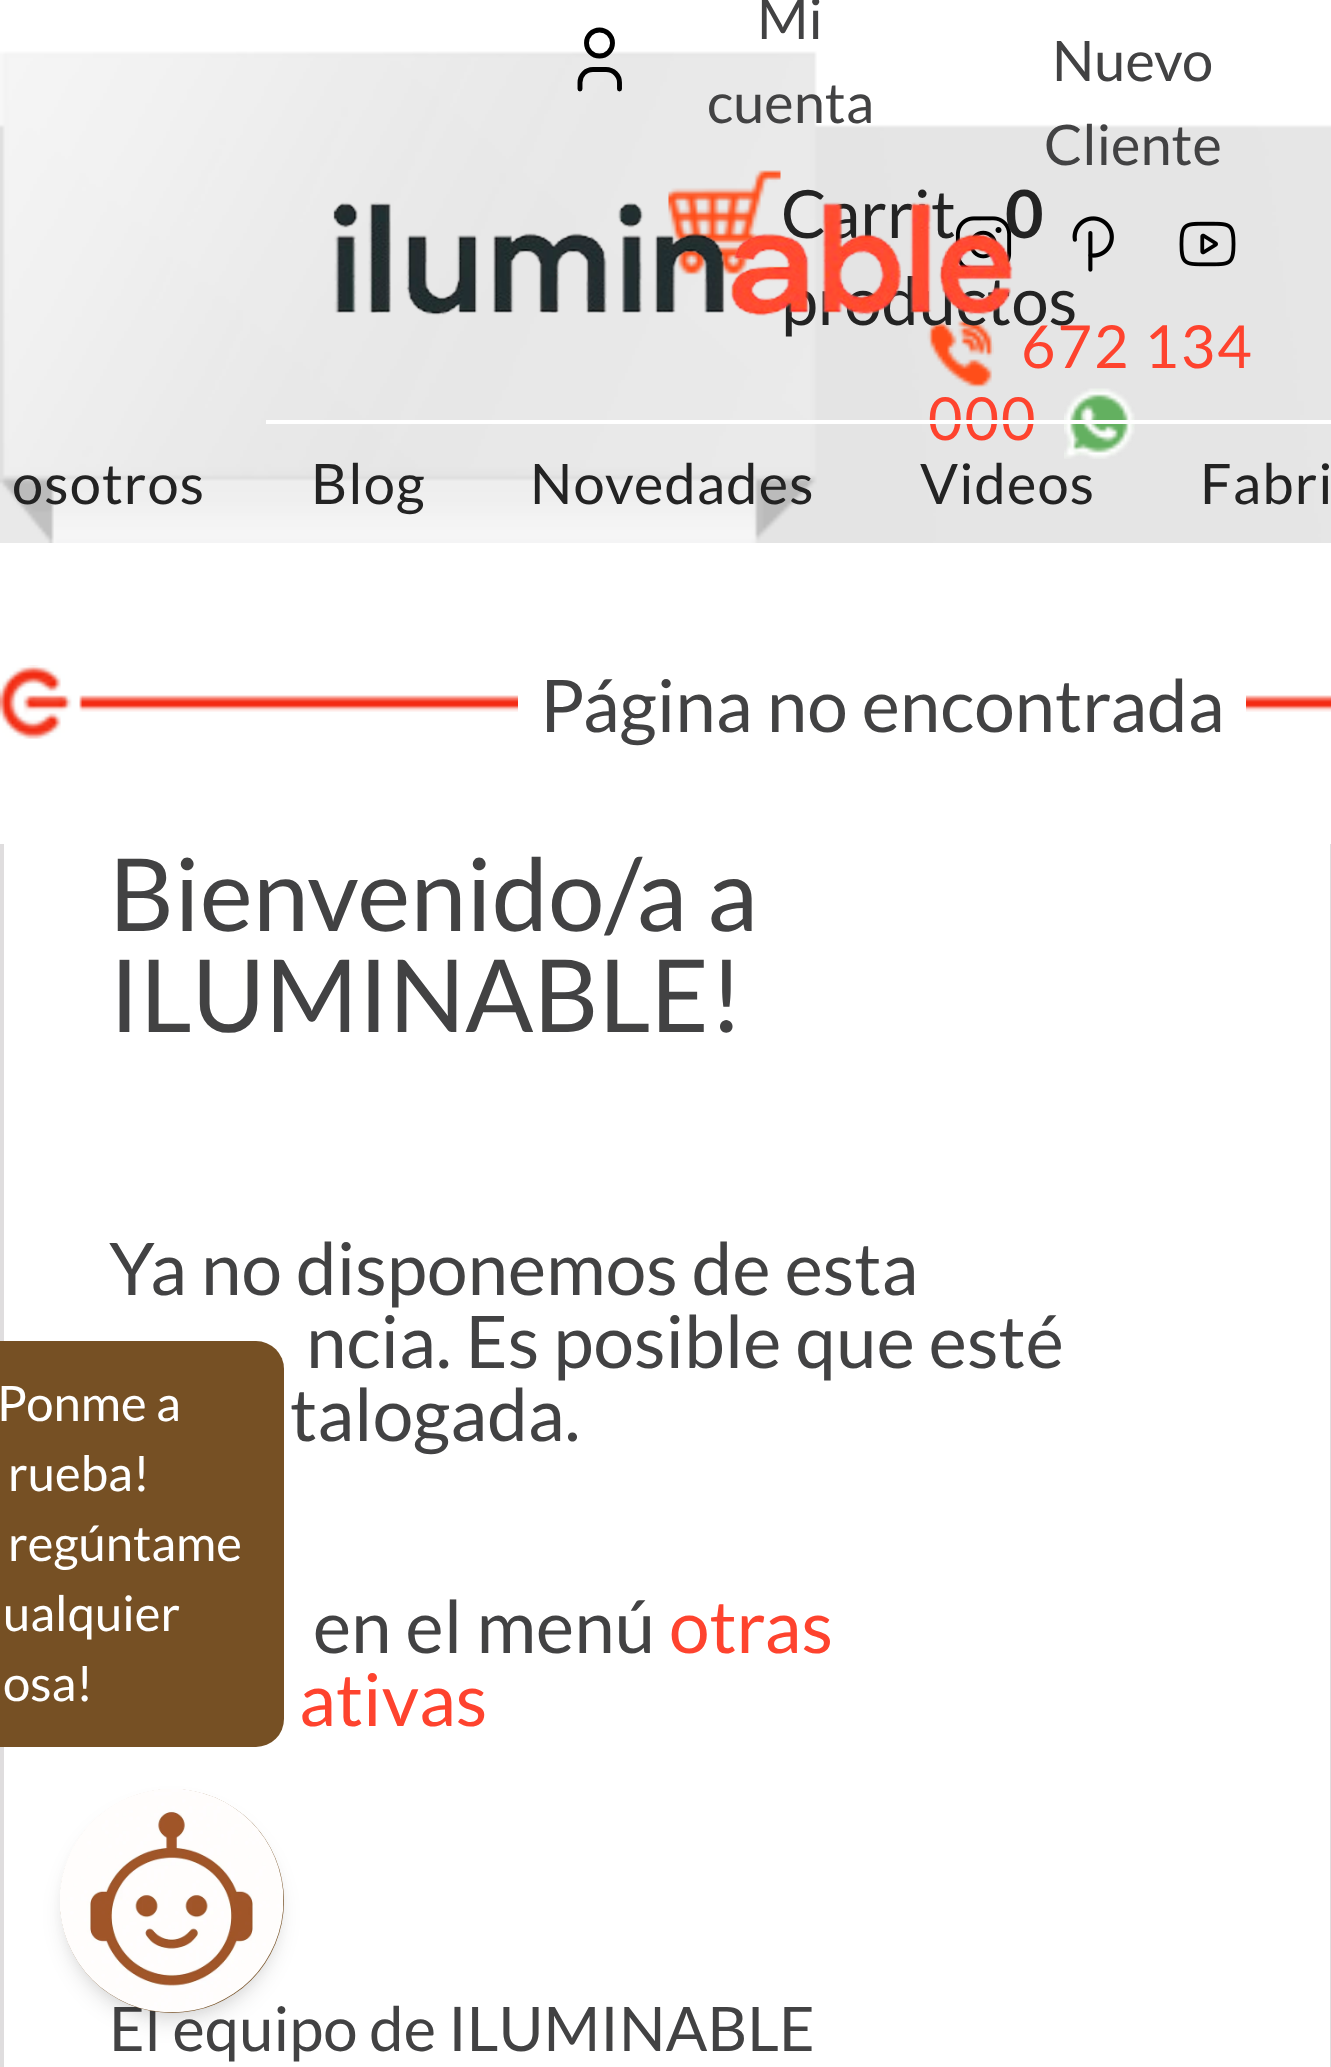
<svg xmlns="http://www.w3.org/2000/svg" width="1331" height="2067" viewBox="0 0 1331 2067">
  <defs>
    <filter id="blur1" x="-50%" y="-200%" width="200%" height="500%"><feGaussianBlur stdDeviation="7"/></filter>
    <filter id="blur2" x="-50%" y="-200%" width="200%" height="500%"><feGaussianBlur stdDeviation="10.5"/></filter>
  </defs>
  <rect width="100%" height="100%" fill="#ffffff"/>
  <image x="0" y="51" width="1331" height="492" href="img1.png"/>
  <text x="757" y="39" font-family="Lato" font-size="56" fill="#424243">Mi</text>
  <circle cx="599.5" cy="43" r="13" fill="none" stroke="#000000" stroke-width="4.9"/>
  <path d="M580 89V82.5C580 75.5 585.5 69.5 593 69.5H606C613.5 69.5 619.5 75.5 619.5 82.5V89" fill="none" stroke="#000000" stroke-width="4.9" stroke-linecap="round" stroke-linejoin="round"/>
  <text x="707" y="123" font-family="Lato" font-size="56" fill="#424243">cuenta</text>
  <text x="1052" y="81" font-family="Lato" font-size="56" fill="#424243">Nuevo</text>
  <text x="1044" y="165" font-family="Lato" font-size="56" fill="#424243">Cliente</text>
  <image x="668" y="170" width="113" height="105" href="img2.png"/>
  <text x="781" y="238" font-family="Lato" font-size="66.5" fill="#232323">Carrit</text>
  <image x="955" y="216" width="57" height="52" href="img3.png"/>
  <text x="1005" y="238" font-family="Lato" font-size="66.5" font-weight="bold" fill="#232323">0</text>
  <image x="927" y="318" width="67" height="70" href="img6.png"/>
  <text x="781" y="325" font-family="Lato" font-size="66.5" fill="#232323">productos</text>
  <image x="1072" y="216" width="42" height="56" href="img4.png"/>
  <image x="1179" y="221" width="57" height="46" href="img5.png"/>
  <text x="1021" y="368" font-family="Lato" font-size="59.5" letter-spacing="2" fill="#fe432e">672 134</text>
  <text x="928" y="440" font-family="Lato" font-size="59.5" letter-spacing="2" fill="#fe432e">000</text>
  <image x="1064" y="388" width="71" height="71" href="img7.png"/>
  <rect x="266" y="420" width="1065" height="4" fill="#ffffff"/>
  <text x="12" y="504" font-family="Lato" font-size="56" letter-spacing="1.1" fill="#232323">osotros</text>
  <text x="311" y="504" font-family="Lato" font-size="56" letter-spacing="1.1" fill="#232323">Blog</text>
  <text x="530" y="504" font-family="Lato" font-size="56" letter-spacing="1.1" fill="#232323">Novedades</text>
  <text x="920" y="504" font-family="Lato" font-size="56" letter-spacing="1.1" fill="#232323">Videos</text>
  <text x="1200" y="504" font-family="Lato" font-size="56" letter-spacing="1.1" fill="#232323">Fabri</text>
  <image x="333" y="202" width="680" height="114" href="img8.png"/>
  <image x="0" y="665" width="1331" height="74" href="img9.png"/>
  <rect x="518" y="695" width="728" height="17" fill="#ffffff"/>
  <text x="540" y="732" font-family="Lato" font-size="72.75" fill="#424243">Página no encontrada</text>
  <rect x="1330" y="844" width="1" height="1223" fill="#dfddde"/>
  <rect x="0" y="844" width="4" height="1223" fill="#dfddde"/>
  <text x="109" y="931" font-family="Lato" font-size="100.75" fill="#424243">Bienvenido/a a</text>
  <text x="109" y="1032" font-family="Lato" font-size="100.75" fill="#424243">ILUMINABLE!</text>
  <text x="109" y="1295" font-family="Lato" font-size="72.75" fill="#424243">Ya no disponemos de esta</text>
  <text x="306" y="1368" font-family="Lato" font-size="72.75" fill="#424243">ncia. Es posible que esté</text>
  <text x="290" y="1441" font-family="Lato" font-size="72.75" fill="#424243">talogada.</text>
  <text x="313" y="1653" font-family="Lato" font-size="72.75" fill="#424243">en el menú</text>
  <text x="669" y="1653" font-family="Lato" font-size="72.75" fill="#fe432e">otras</text>
  <text x="299" y="1726" font-family="Lato" font-size="72.75" fill="#fe432e">ativas</text>
  <text x="109" y="2051" font-family="Lato" font-size="61.6" fill="#424243">El equipo de ILUMINABLE</text>
  <rect x="-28" y="1341" width="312" height="406" rx="28" fill="#765024"/>
  <text x="-3" y="1421" font-family="Lato" font-size="49" fill="#ffffff">Ponme a</text>
  <text x="8" y="1491" font-family="Lato" font-size="49" fill="#ffffff">rueba!</text>
  <text x="8" y="1561" font-family="Lato" font-size="49" fill="#ffffff">regúntame</text>
  <text x="3" y="1631" font-family="Lato" font-size="49" fill="#ffffff">ualquier</text>
  <text x="3" y="1701" font-family="Lato" font-size="49" fill="#ffffff">osa!</text>
  <rect x="67" y="1803" width="210" height="210" rx="105" fill="#000000" fill-opacity="0.1" filter="url(#blur1)"/>
  <rect x="63" y="1806" width="217" height="217" rx="108.5" fill="#000000" fill-opacity="0.1" filter="url(#blur2)"/>
  <circle cx="172" cy="1901" r="112" fill="#765024"/>
  <image x="60" y="1789" width="224" height="224" href="img10.png"/>
</svg>
